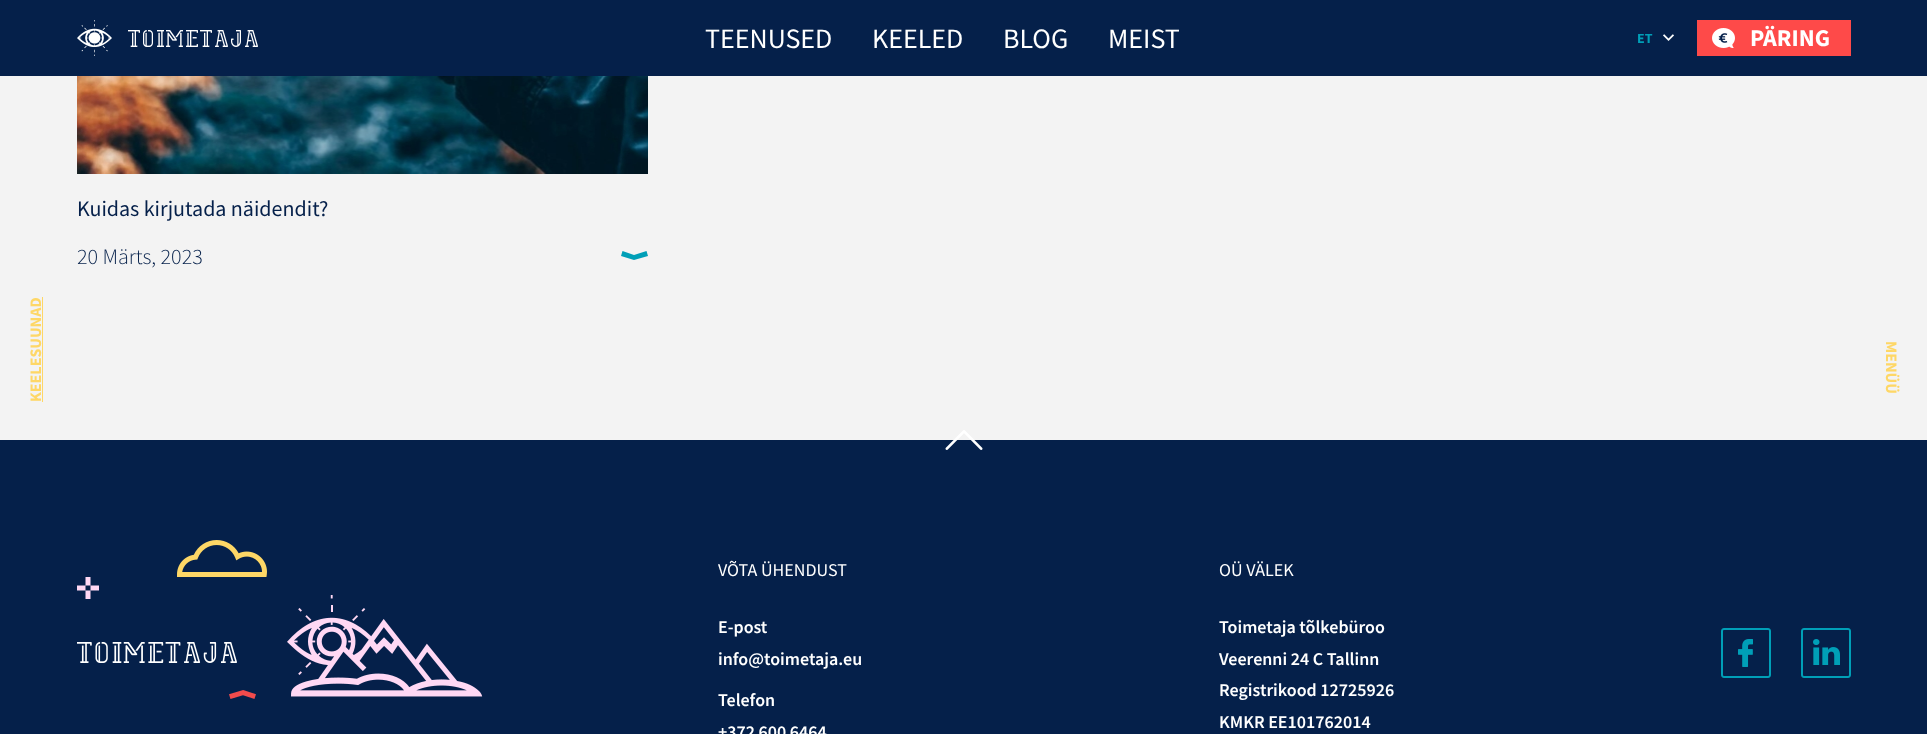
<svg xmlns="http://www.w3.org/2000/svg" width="1927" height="734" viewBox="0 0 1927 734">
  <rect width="100%" height="100%" fill="#f3f3f3"/>
  <rect x="0" y="0" width="1927" height="76" fill="#05204a"/>
  <image x="77" y="20" width="35" height="36" href="img1.png"/>
  <image x="128" y="30" width="130" height="17" href="img2.png"/>
  <text x="705" y="48" font-family="Source Sans Pro" font-size="28" fill="#ffffff">TEENUSED</text>
  <text x="872" y="48" font-family="Source Sans Pro" font-size="28" fill="#ffffff">KEELED</text>
  <text x="1003" y="48" font-family="Source Sans Pro" font-size="28" fill="#ffffff">BLOG</text>
  <text x="1108" y="48" font-family="Source Sans Pro" font-size="28" fill="#ffffff">MEIST</text>
  <text x="1637" y="43" font-family="Source Sans Pro" font-size="14" font-weight="bold" fill="#009fb7">ET</text>
  <image x="1663" y="34" width="11" height="7" href="img3.png"/>
  <rect x="1697" y="20" width="154" height="36" fill="#fe4a49"/>
  <image x="1712" y="28" width="23" height="20" href="img4.png"/>
  <text x="1750" y="46" font-family="Source Sans Pro" font-size="24" font-weight="bold" fill="#ffffff">PÄRING</text>
  <image x="77" y="76" width="571" height="98" href="img5.png"/>
  <text x="77" y="216" font-family="Source Sans Pro" font-size="22" fill="#05204a">Kuidas kirjutada näidendit?</text>
  <text x="77" y="264" font-family="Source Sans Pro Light" font-size="22" font-weight="300" fill="#05204a">20 Märts, 2023</text>
  <path d="M634 260L648 256L646.5 251L634 255L622.5 251L621 256Z" fill="#009fb7" fill-rule="evenodd"/>
  <text x="41" y="402" transform="rotate(-90 41 402)" font-family="Source Sans Pro" font-size="16" font-weight="bold" fill="#fed766">KEELESUUNAD</text>
  <rect x="42" y="297" width="1" height="105" fill="#fed766"/>
  <text x="1886" y="341" transform="rotate(90 1886 341)" font-family="Source Sans Pro" font-size="16" font-weight="bold" fill="#fed766">MENÜÜ</text>
  <rect x="0" y="440" width="1927" height="294" fill="#05204a"/>
  <image x="945" y="430" width="38" height="20" href="img6.png"/>
  <image x="77" y="540" width="406" height="159" href="img7.png"/>
  <text x="718" y="576" font-family="Source Sans Pro" font-size="18" fill="#ffffff">VÕTA ÜHENDUST</text>
  <text x="718" y="633" font-family="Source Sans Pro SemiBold" font-size="18" font-weight="600" fill="#ffffff">E-post</text>
  <text x="718" y="665" font-family="Source Sans Pro SemiBold" font-size="18" font-weight="600" fill="#ffffff">info@toimetaja.eu</text>
  <text x="718" y="706" font-family="Source Sans Pro SemiBold" font-size="18" font-weight="600" fill="#ffffff">Telefon</text>
  <text x="718" y="738" font-family="Source Sans Pro SemiBold" font-size="18" font-weight="600" fill="#ffffff">+372 600 6464</text>
  <text x="1219" y="576" font-family="Source Sans Pro" font-size="18" fill="#ffffff">OÜ VÄLEK</text>
  <text x="1219" y="633" font-family="Source Sans Pro SemiBold" font-size="18" font-weight="600" fill="#ffffff">Toimetaja tõlkebüroo</text>
  <text x="1219" y="665" font-family="Source Sans Pro SemiBold" font-size="18" font-weight="600" fill="#ffffff">Veerenni 24 C Tallinn</text>
  <text x="1219" y="696" font-family="Source Sans Pro SemiBold" font-size="18" font-weight="600" fill="#ffffff">Registrikood 12725926</text>
  <text x="1219" y="728" font-family="Source Sans Pro SemiBold" font-size="18" font-weight="600" fill="#ffffff">KMKR EE101762014</text>
  <image x="1721" y="628" width="50" height="50" href="img8.png"/>
  <image x="1801" y="628" width="50" height="50" href="img9.png"/>
</svg>
